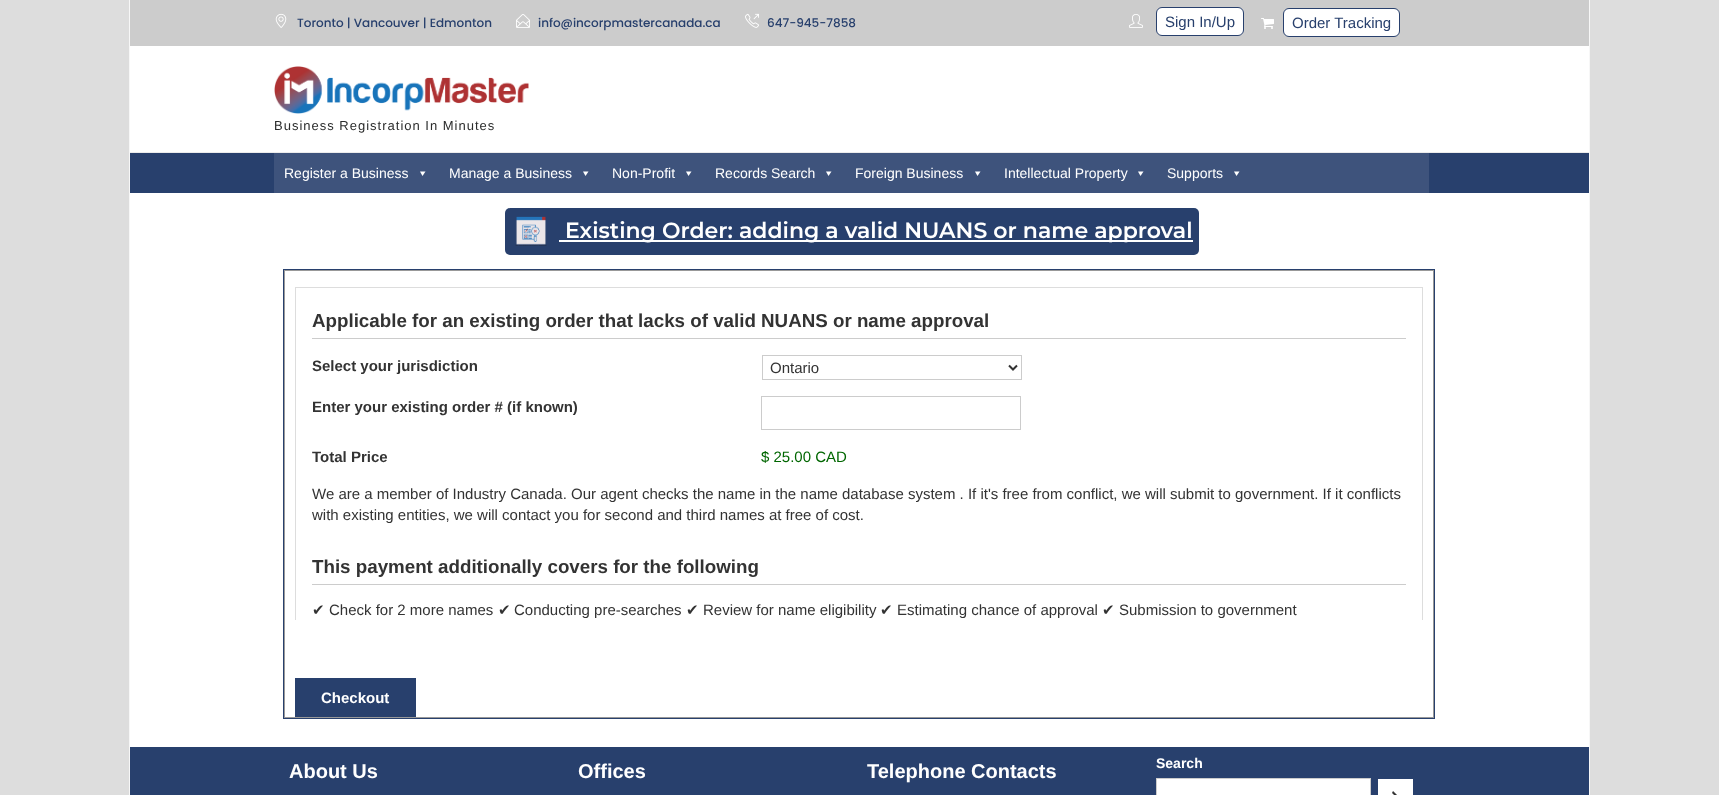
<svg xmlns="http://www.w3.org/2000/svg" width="1719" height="795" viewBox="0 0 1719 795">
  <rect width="100%" height="100%" fill="#dddddd"/>
  <rect x="130" y="46" width="1459" height="701" fill="#ffffff"/>
  <rect x="1589" y="0" width="1" height="795" fill="#f7f7f7"/>
  <rect x="129" y="0" width="1" height="795" fill="#f7f7f7"/>
  <rect x="130" y="0" width="1459" height="46" fill="#cccccc"/>
  <image x="275" y="13" width="12" height="15" href="img1.png"/>
  <text x="297" y="27" font-family="Poppins" font-size="12" font-weight="500" fill="#28406d">Toronto | Vancouver | Edmonton</text>
  <image x="516" y="14" width="14" height="14" href="img2.png"/>
  <text x="538" y="27" font-family="Poppins" font-size="12" font-weight="500" fill="#28406d">info@incorpmastercanada.ca</text>
  <image x="745" y="13" width="14" height="15" href="img3.png"/>
  <text x="767" y="27" font-family="Poppins" font-size="12" font-weight="500" fill="#28406d">647-945-7858</text>
  <image x="1129" y="14" width="14" height="14" href="img4.png"/>
  <rect x="1156.5" y="7.5" width="87" height="28" rx="5.5" fill="#ffffff" stroke="#28406d"/>
  <text x="1165" y="27" font-family="Liberation Sans" font-size="15" fill="#28406d">Sign In/Up</text>
  <image x="1261" y="18" width="13" height="11" href="img5.png"/>
  <rect x="1283.5" y="8.5" width="116" height="28" rx="5.5" fill="#ffffff" stroke="#28406d"/>
  <text x="1292" y="28" font-family="Liberation Sans" font-size="15" fill="#28406d">Order Tracking</text>
  <image x="274" y="66" width="255" height="48" href="img6.png"/>
  <text x="274" y="130" font-family="Liberation Sans" font-size="13" letter-spacing="1" fill="#2b2c2c">Business Registration In Minutes</text>
  <rect x="130" y="153" width="1459" height="40" fill="#28406d"/>
  <rect x="130" y="152" width="1459" height="1" fill="#ececec"/>
  <rect x="274" y="153" width="1155" height="40" fill="#3e537c"/>
  <text x="284" y="178" font-family="Liberation Sans" font-size="14" fill="#ffffff">Register a Business</text>
  <path d="M425.5 171.5L422.5 176L420 171.5Z" fill="#ffffff"/>
  <text x="449" y="178" font-family="Liberation Sans" font-size="14" fill="#ffffff">Manage a Business</text>
  <path d="M588.5 171.5L585.5 176L583 171.5Z" fill="#ffffff"/>
  <text x="612" y="178" font-family="Liberation Sans" font-size="14" fill="#ffffff">Non-Profit</text>
  <path d="M691.5 171.5L688.5 176L686 171.5Z" fill="#ffffff"/>
  <text x="715" y="178" font-family="Liberation Sans" font-size="14" fill="#ffffff">Records Search</text>
  <path d="M831.5 171.5L828.5 176L826 171.5Z" fill="#ffffff"/>
  <text x="855" y="178" font-family="Liberation Sans" font-size="14" fill="#ffffff">Foreign Business</text>
  <path d="M980.5 171.5L977.5 176L975 171.5Z" fill="#ffffff"/>
  <text x="1004" y="178" font-family="Liberation Sans" font-size="14" fill="#ffffff">Intellectual Property</text>
  <path d="M1143.5 171.5L1140.5 176L1138 171.5Z" fill="#ffffff"/>
  <text x="1167" y="178" font-family="Liberation Sans" font-size="14" fill="#ffffff">Supports</text>
  <path d="M1239.5 171.5L1236.5 176L1234 171.5Z" fill="#ffffff"/>
  <rect x="505" y="208" width="694" height="47" rx="5" fill="#28406d"/>
  <image x="515" y="216" width="32" height="30" href="img7.png"/>
  <rect x="559" y="240" width="634" height="2" fill="#ffffff"/>
  <text x="565" y="238" font-family="Montserrat" font-size="22" font-weight="600" fill="#ffffff">Existing Order: adding a valid NUANS or name approval</text>
  <rect x="284.5" y="270.5" width="1149" height="447" fill="none" stroke="#999999"/>
  <rect x="283.5" y="269.5" width="1151" height="449" fill="none" stroke="#28406d"/>
  <rect x="295" y="287" width="1128" height="1" fill="#dddddd"/>
  <rect x="1422" y="287" width="1" height="333" fill="#dddddd"/>
  <rect x="295" y="287" width="1" height="333" fill="#dddddd"/>
  <rect x="312" y="338" width="1094" height="1" fill="#cccccc"/>
  <text x="312" y="327" font-family="Liberation Sans" font-size="18.75" font-weight="bold" fill="#333333">Applicable for an existing order that lacks of valid NUANS or name approval</text>
  <text x="312" y="371" font-family="Liberation Sans" font-size="15" font-weight="bold" fill="#333333">Select your jurisdiction</text>
  <rect x="762.5" y="355.5" width="259" height="24" fill="none" stroke="#cccccc"/>
  <path d="M1009 365.5L1013 369.5L1017 365.5" fill="none" stroke="#333333" stroke-width="2"/>
  <text x="770" y="373" font-family="Liberation Sans" font-size="15" fill="#333333">Ontario</text>
  <text x="312" y="412" font-family="Liberation Sans" font-size="15" font-weight="bold" fill="#333333">Enter your existing order # (if known)</text>
  <rect x="761.5" y="396.5" width="259" height="33" fill="none" stroke="#cccccc"/>
  <text x="312" y="462" font-family="Liberation Sans" font-size="15" font-weight="bold" fill="#333333">Total Price</text>
  <text x="761" y="462" font-family="Liberation Sans" font-size="15" fill="#006600">$ 25.00 CAD</text>
  <text x="312" y="499" font-family="Liberation Sans" font-size="15" fill="#333333">We are a member of Industry Canada. Our agent checks the name in the name database system . If it's free from conflict, we will submit to government. If it conflicts</text>
  <text x="312" y="520" font-family="Liberation Sans" font-size="15" fill="#333333">with existing entities, we will contact you for second and third names at free of cost.</text>
  <rect x="312" y="584" width="1094" height="1" fill="#cccccc"/>
  <text x="312" y="573" font-family="Liberation Sans" font-size="18.75" font-weight="bold" fill="#333333">This payment additionally covers for the following</text>
  <text x="312" y="615" font-family="DejaVu Sans" font-size="15" fill="#333333">✔</text>
  <text x="329" y="615" font-family="Liberation Sans" font-size="15" fill="#333333">Check for 2 more names</text>
  <text x="498" y="615" font-family="DejaVu Sans" font-size="15" fill="#333333">✔</text>
  <text x="514" y="615" font-family="Liberation Sans" font-size="15" fill="#333333">Conducting pre-searches</text>
  <text x="686" y="615" font-family="DejaVu Sans" font-size="15" fill="#333333">✔</text>
  <text x="703" y="615" font-family="Liberation Sans" font-size="15" fill="#333333">Review for name eligibility</text>
  <text x="880" y="615" font-family="DejaVu Sans" font-size="15" fill="#333333">✔</text>
  <text x="897" y="615" font-family="Liberation Sans" font-size="15" fill="#333333">Estimating chance of approval</text>
  <text x="1102" y="615" font-family="DejaVu Sans" font-size="15" fill="#333333">✔</text>
  <text x="1119" y="615" font-family="Liberation Sans" font-size="15" fill="#333333">Submission to government</text>
  <rect x="295" y="678" width="121" height="39" fill="#28406d"/>
  <text x="321" y="703" font-family="Liberation Sans" font-size="15" font-weight="bold" fill="#ffffff">Checkout</text>
  <rect x="130" y="747" width="1459" height="48" fill="#28406d"/>
  <text x="289" y="778" font-family="Liberation Sans" font-size="20" font-weight="bold" fill="#ffffff">About Us</text>
  <text x="578" y="778" font-family="Liberation Sans" font-size="20" font-weight="bold" fill="#ffffff">Offices</text>
  <text x="867" y="778" font-family="Liberation Sans" font-size="20" font-weight="bold" fill="#ffffff">Telephone Contacts</text>
  <text x="1156" y="768" font-family="Liberation Sans" font-size="14" font-weight="bold" fill="#ffffff">Search</text>
  <rect x="1156.5" y="778.5" width="214" height="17" fill="#ffffff" stroke="#cccccc"/>
  <rect x="1378" y="779" width="35" height="16" fill="#ffffff"/>
  <image x="1392" y="791" width="5" height="4" href="img8.png"/>
</svg>
